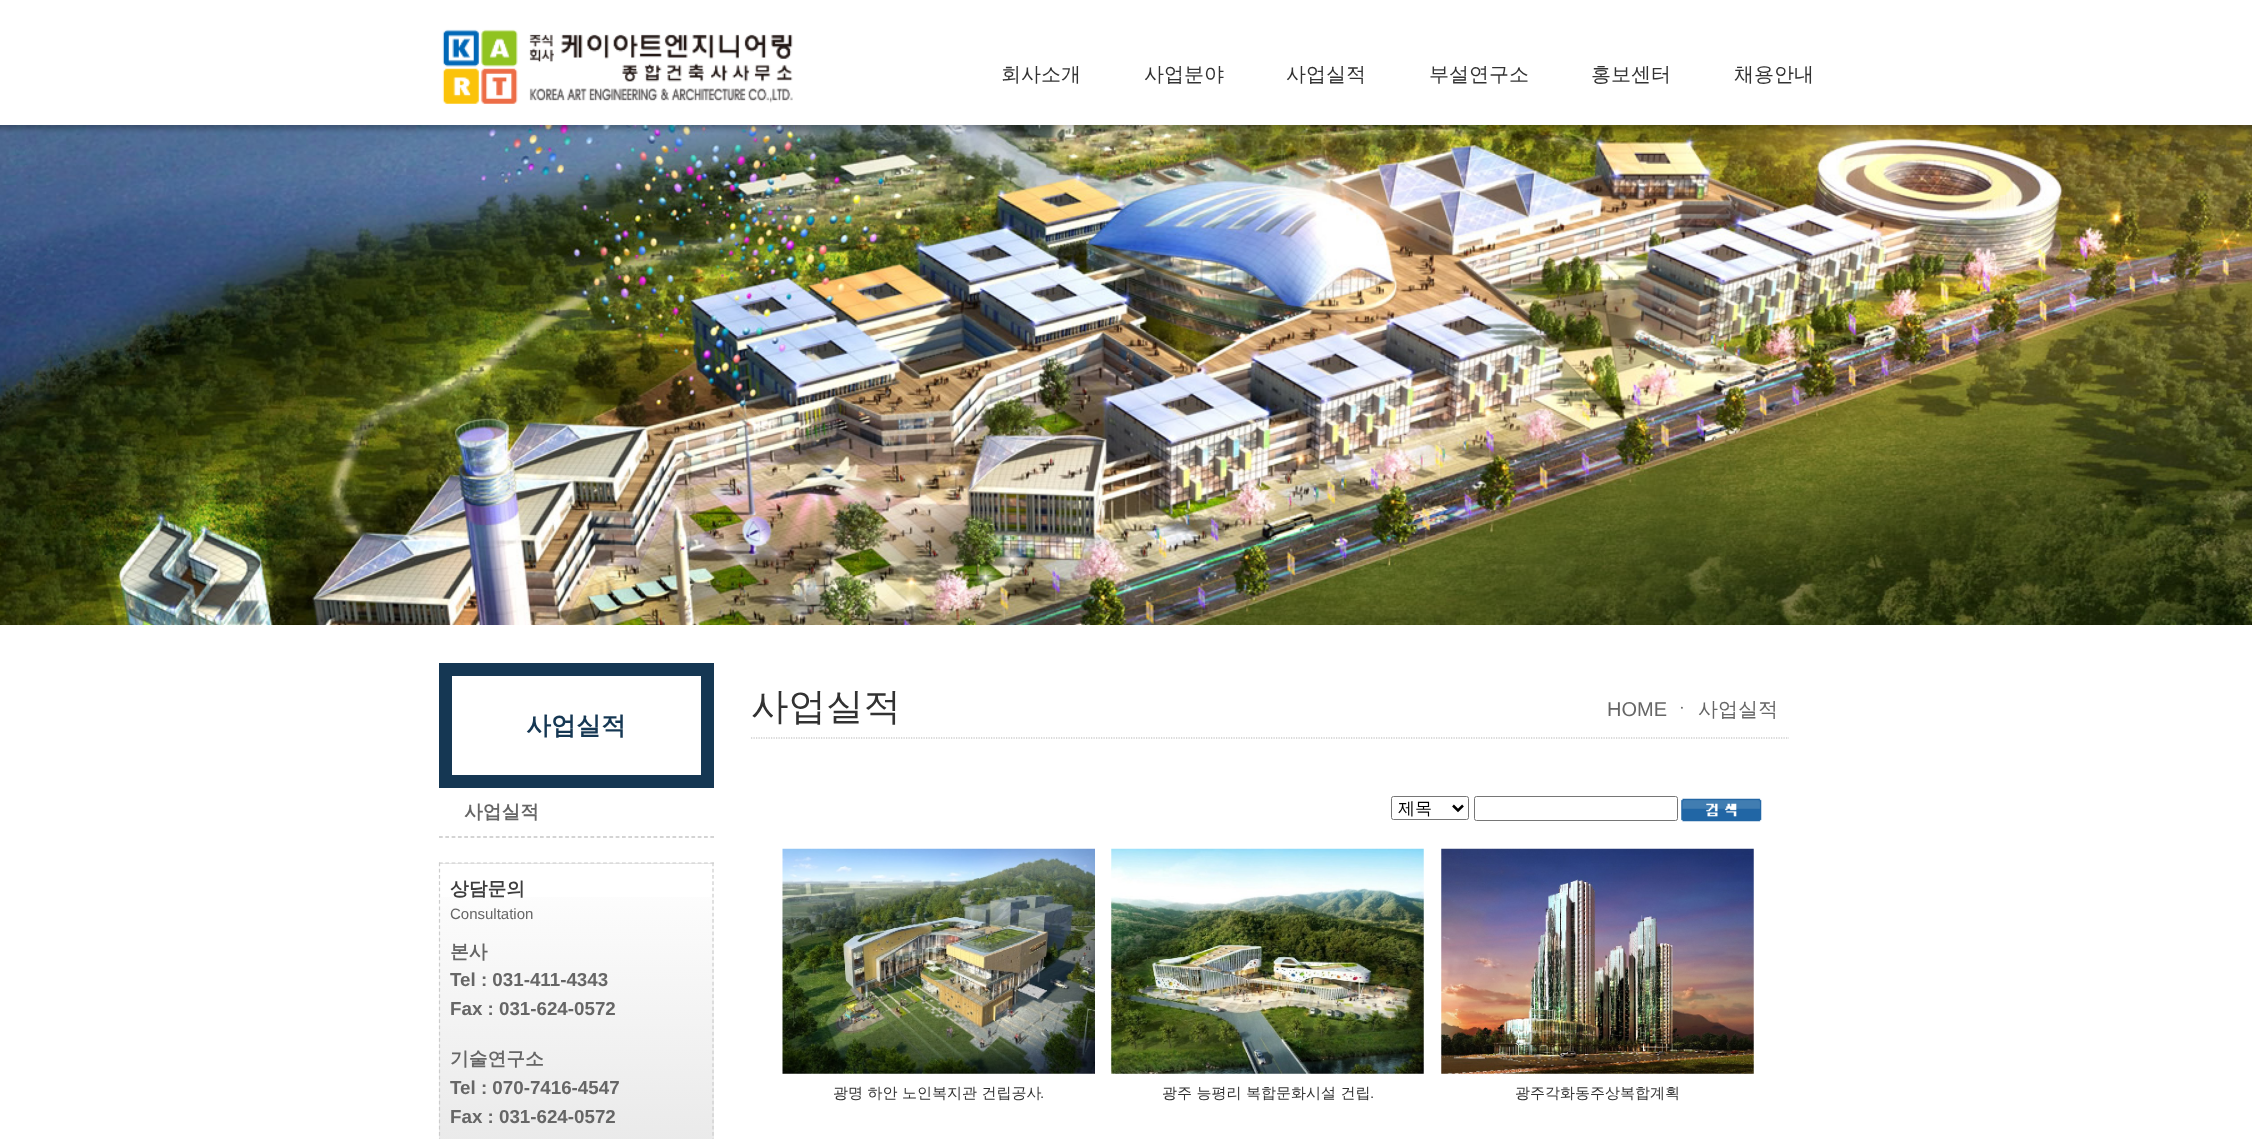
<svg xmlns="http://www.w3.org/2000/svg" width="2252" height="1139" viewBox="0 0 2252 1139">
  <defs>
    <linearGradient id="g1" gradientUnits="userSpaceOnUse" x1="440" y1="864" x2="440" y2="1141"><stop offset="0" stop-color="#ffffff"/><stop offset="1" stop-color="#eaeaea"/></linearGradient>
  </defs>
  <rect width="100%" height="100%" fill="#ffffff"/>
  <image x="442" y="29" width="351" height="75" href="img1.png"/>
  <text x="1001" y="81" font-family="WenQuanYi Zen Hei" font-size="20" font-weight="500" fill="#323232">회사소개</text>
  <text x="1144" y="81" font-family="WenQuanYi Zen Hei" font-size="20" font-weight="500" fill="#323232">사업분야</text>
  <text x="1286" y="81" font-family="WenQuanYi Zen Hei" font-size="20" font-weight="500" fill="#323232">사업실적</text>
  <text x="1429" y="81" font-family="WenQuanYi Zen Hei" font-size="20" font-weight="500" fill="#323232">부설연구소</text>
  <text x="1591" y="81" font-family="WenQuanYi Zen Hei" font-size="20" font-weight="500" fill="#323232">홍보센터</text>
  <text x="1734" y="81" font-family="WenQuanYi Zen Hei" font-size="20" font-weight="500" fill="#323232">채용안내</text>
  <image x="0" y="125" width="2252" height="500" href="img2.png"/>
  <rect x="445.5" y="669.5" width="262" height="112" fill="none" stroke="#153753" stroke-width="13"/>
  <text x="526" y="734" font-family="WenQuanYi Zen Hei" font-size="25" font-weight="bold" fill="#153753">사업실적</text>
  <path d="M439 837H714" fill="none" stroke="#aaaaaa" stroke-width="1.2" stroke-dasharray="3.75 2.56"/>
  <text x="464" y="818" font-family="WenQuanYi Zen Hei" font-size="18.75" font-weight="bold" fill="#666666">사업실적</text>
  <rect x="440" y="863" width="274" height="1" fill="#eaeaea"/>
  <rect x="439" y="897" width="275" height="242" fill="url(#g1)"/>
  <path d="M439 863H714" fill="none" stroke="#cccccc" stroke-width="1.2" stroke-dasharray="3.75 2.56"/>
  <path d="M713 862.5V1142.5" fill="none" stroke="#cccccc" stroke-width="1.2" stroke-dasharray="3.75 2.52"/>
  <path d="M439.5 862.5V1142.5" fill="none" stroke="#cccccc" stroke-width="1.2" stroke-dasharray="3.75 2.52"/>
  <text x="450" y="895" font-family="WenQuanYi Zen Hei" font-size="18.75" font-weight="bold" fill="#3e3e3e">상담문의</text>
  <text x="450" y="919" font-family="Liberation Sans" font-size="15" fill="#666666">Consultation</text>
  <text x="450" y="958" font-family="WenQuanYi Zen Hei" font-size="18.75" font-weight="bold" fill="#666666">본사</text>
  <text x="450" y="986" font-family="Liberation Sans" font-size="18.75" font-weight="bold" fill="#666666">Tel : 031-411-4343</text>
  <text x="450" y="1015" font-family="Liberation Sans" font-size="18.75" font-weight="bold" fill="#666666">Fax : 031-624-0572</text>
  <text x="450" y="1065" font-family="WenQuanYi Zen Hei" font-size="18.75" font-weight="bold" fill="#666666">기술연구소</text>
  <text x="450" y="1094" font-family="Liberation Sans" font-size="18.75" font-weight="bold" fill="#666666">Tel : 070-7416-4547</text>
  <text x="450" y="1123" font-family="Liberation Sans" font-size="18.75" font-weight="bold" fill="#666666">Fax : 031-624-0572</text>
  <path d="M751 738H1789" fill="none" stroke="#b5b5b5" stroke-width="1.2" stroke-dasharray="1.25 1.25"/>
  <text x="751" y="719" font-family="WenQuanYi Zen Hei" font-size="37.5" font-weight="500" fill="#323232">사업실적</text>
  <text x="1607" y="716" font-family="Liberation Sans" font-size="20" fill="#666666">HOME</text>
  <text x="1672" y="716" font-family="WenQuanYi Zen Hei" font-size="20" font-weight="500" fill="#666666">ㆍ 사업실적</text>
  <rect x="1391.5" y="796.5" width="77" height="23" rx="2" fill="none" stroke="#767676"/>
  <path d="M1453 805.5L1458 810.5L1463 805.5" fill="none" stroke="#000000" stroke-width="2.5"/>
  <text x="1398" y="814" font-family="WenQuanYi Zen Hei" font-size="17" font-weight="500" fill="#000000">제목</text>
  <rect x="1474.5" y="796.5" width="203" height="24" rx="2" fill="none" stroke="#767676"/>
  <image x="1681" y="798" width="81" height="24" href="img3.png"/>
  <image x="782" y="848" width="313" height="226" href="img4.png"/>
  <text x="833" y="1098" font-family="WenQuanYi Zen Hei" font-size="15" font-weight="500" fill="#323232">광명 하안 노인복지관 건립공사</text>
  <text x="1040" y="1098" font-family="Liberation Sans" font-size="15" fill="#323232">.</text>
  <image x="1111" y="848" width="313" height="226" href="img5.png"/>
  <text x="1162" y="1098" font-family="WenQuanYi Zen Hei" font-size="15" font-weight="500" fill="#323232">광주 능평리 복합문화시설 건립</text>
  <text x="1370" y="1098" font-family="Liberation Sans" font-size="15" fill="#323232">.</text>
  <image x="1441" y="848" width="313" height="226" href="img6.png"/>
  <text x="1515" y="1098" font-family="WenQuanYi Zen Hei" font-size="15" font-weight="500" fill="#323232">광주각화동주상복합계획</text>
</svg>
